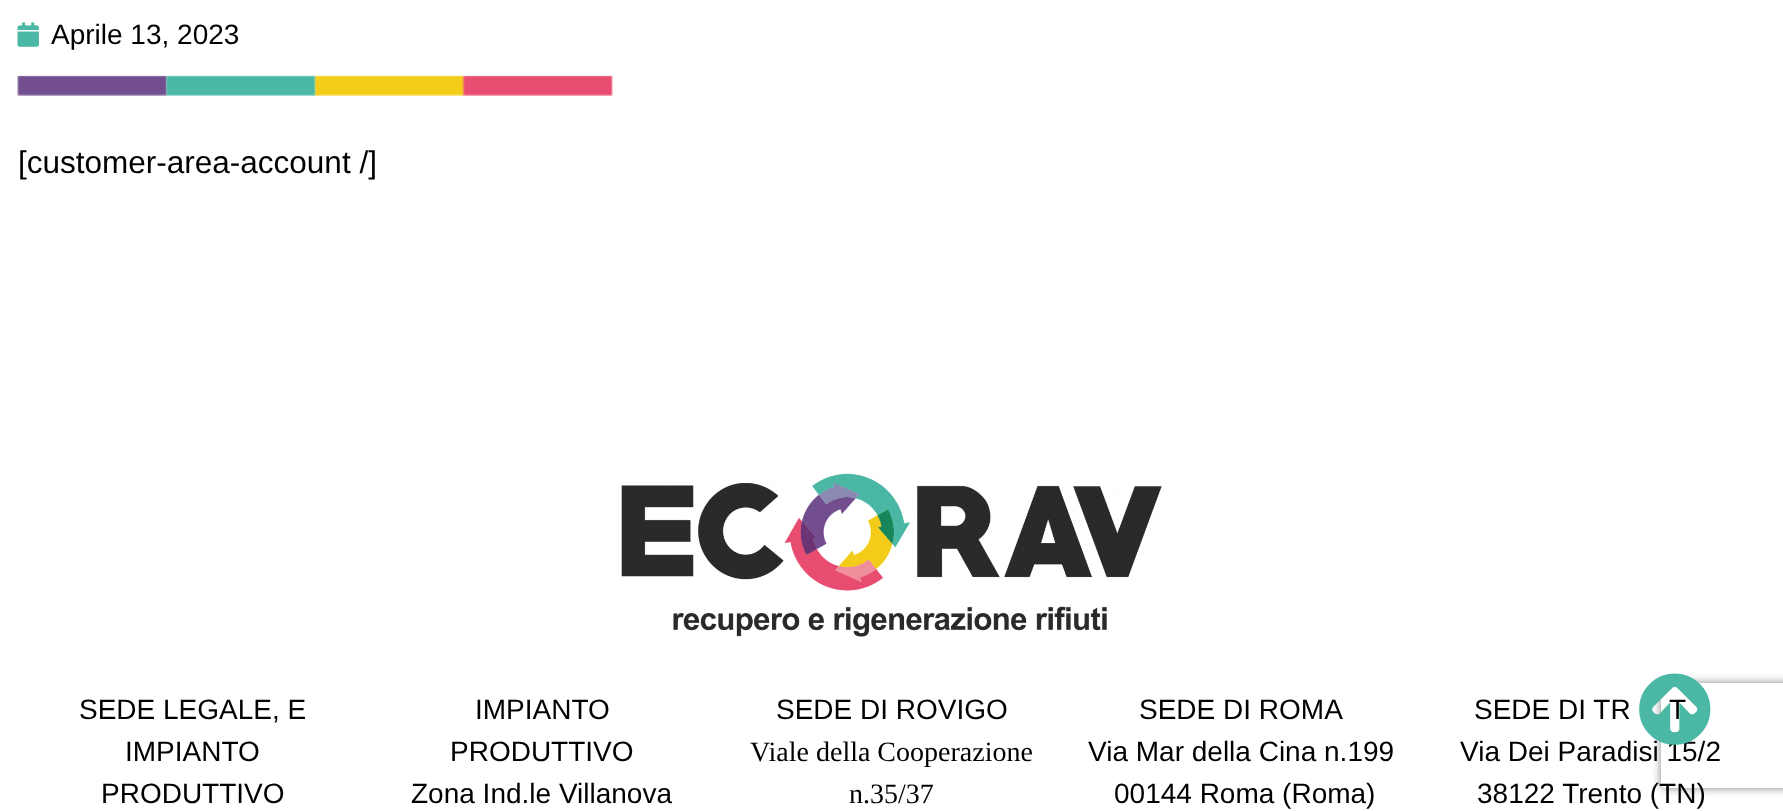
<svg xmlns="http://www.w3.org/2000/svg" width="1783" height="811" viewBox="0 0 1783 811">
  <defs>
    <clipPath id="clip1"><path d="M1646 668H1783V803H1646ZM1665 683H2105C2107 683 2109 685 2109 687V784C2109 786 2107 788 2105 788H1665C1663 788 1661 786 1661 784V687C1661 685 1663 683 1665 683Z" clip-rule="evenodd"/></clipPath>
    <filter id="blur1" x="-50%" y="-200%" width="200%" height="500%"><feGaussianBlur stdDeviation="4.5"/></filter>
  </defs>
  <rect width="100%" height="100%" fill="#ffffff"/>
  <image x="17" y="22" width="22" height="25" href="img1.png"/>
  <text x="51" y="44" font-family="Liberation Sans" font-size="28" fill="#000000">Aprile 13, 2023</text>
  <image x="17" y="75" width="596" height="21" href="img2.png"/>
  <text x="18" y="173" font-family="Liberation Sans" font-size="31.5" fill="#000000">[customer-area-account /]</text>
  <g clip-path="url(#clip1)">
    <rect x="1661" y="683" width="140" height="105" rx="4" fill="#808080" filter="url(#blur1)"/>
  </g>
  <text x="1669" y="719" font-family="Liberation Sans" font-size="28" fill="#000000">T</text>
  <text x="1460" y="761" font-family="Liberation Sans" font-size="28" fill="#000000">Via Dei Paradisi 15/2</text>
  <image x="1639" y="673" width="72" height="72" href="img3.png"/>
  <image x="621" y="473" width="541" height="164" href="img4.png"/>
  <text x="79" y="719" font-family="Liberation Sans" font-size="28" fill="#000000">SEDE LEGALE, E</text>
  <text x="125" y="761" font-family="Liberation Sans" font-size="28" fill="#000000">IMPIANTO</text>
  <text x="101" y="803" font-family="Liberation Sans" font-size="28" fill="#000000">PRODUTTIVO</text>
  <text x="475" y="719" font-family="Liberation Sans" font-size="28" fill="#000000">IMPIANTO</text>
  <text x="450" y="761" font-family="Liberation Sans" font-size="28" fill="#000000">PRODUTTIVO</text>
  <text x="411" y="803" font-family="Liberation Sans" font-size="28" fill="#000000">Zona Ind.le Villanova</text>
  <text x="776" y="719" font-family="Liberation Sans" font-size="28" fill="#000000">SEDE DI ROVIGO</text>
  <text x="750" y="761" font-family="Liberation Serif" font-size="28" fill="#000000">Viale della Cooperazione</text>
  <text x="849" y="803" font-family="Liberation Serif" font-size="28" fill="#000000">n.35/37</text>
  <text x="1139" y="719" font-family="Liberation Sans" font-size="28" fill="#000000">SEDE DI ROMA</text>
  <text x="1088" y="761" font-family="Liberation Sans" font-size="28" fill="#000000">Via Mar della Cina n.199</text>
  <text x="1114" y="803" font-family="Liberation Sans" font-size="28" fill="#000000">00144 Roma (Roma)</text>
  <text x="1474" y="719" font-family="Liberation Sans" font-size="28" fill="#000000">SEDE DI TR</text>
  <text x="1477" y="803" font-family="Liberation Sans" font-size="28" fill="#000000">38122 Trento (TN)</text>
</svg>
